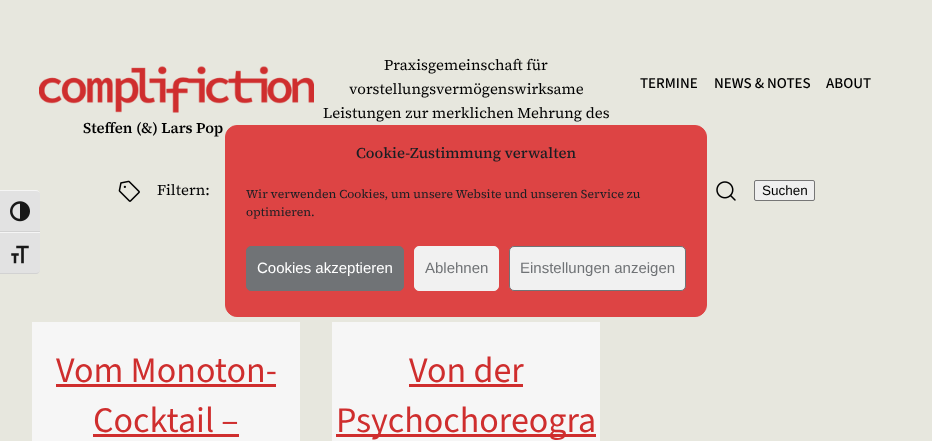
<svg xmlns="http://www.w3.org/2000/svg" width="932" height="441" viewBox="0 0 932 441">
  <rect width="100%" height="100%" fill="#e7e7de"/>
  <text x="384" y="70" font-family="'Source Serif 4'" font-size="15" fill="#000000">Praxisgemeinschaft für</text>
  <text x="349" y="94" font-family="'Source Serif 4'" font-size="15" fill="#000000">vorstellungsvermögenswirksame</text>
  <text x="323" y="118" font-family="'Source Serif 4'" font-size="15" fill="#000000">Leistungen zur merklichen Mehrung des</text>
  <text x="640" y="88" font-family="'Source Sans 3'" font-size="15" font-weight="500" fill="#000000">TERMINE</text>
  <text x="714" y="88" font-family="'Source Sans 3'" font-size="15" font-weight="500" fill="#000000">NEWS &amp; NOTES</text>
  <text x="826" y="88" font-family="'Source Sans 3'" font-size="15" font-weight="500" fill="#000000">ABOUT</text>
  <image x="39" y="66" width="275" height="47" href="img1.png"/>
  <text x="83" y="133" font-family="'Source Serif 4'" font-size="15" font-weight="600" fill="#000000">Steffen (&amp;) Lars Pop</text>
  <image x="118" y="180" width="22" height="22" href="img2.png"/>
  <text x="157" y="195" font-family="'Source Serif 4'" font-size="15" fill="#000000">Filtern:</text>
  <image x="716" y="181" width="20" height="20" href="img3.png"/>
  <rect x="754.5" y="180.5" width="60" height="20" rx="1.5" fill="#efefef" stroke="#767676"/>
  <text x="762" y="195" font-family="Liberation Sans" font-size="13.5" fill="#000000">Suchen</text>
  <rect x="32" y="322" width="268" height="119" fill="#f6f6f6"/>
  <text x="56" y="382" font-family="'Source Sans 3'" font-size="36" fill="#cf2e2e">Vom Monoton-</text>
  <rect x="56" y="384" width="220" height="3" fill="#cf2e2e"/>
  <text x="93" y="432" font-family="'Source Sans 3'" font-size="36" fill="#cf2e2e">Cocktail –</text>
  <rect x="93" y="434" width="146" height="3" fill="#cf2e2e"/>
  <rect x="332" y="322" width="268" height="119" fill="#f6f6f6"/>
  <text x="409" y="382" font-family="'Source Sans 3'" font-size="36" fill="#cf2e2e">Von der</text>
  <rect x="409" y="384" width="114" height="3" fill="#cf2e2e"/>
  <rect x="336" y="434" width="260" height="3" fill="#cf2e2e"/>
  <text x="336" y="432" font-family="'Source Sans 3'" font-size="36" fill="#cf2e2e">Psychochoreogra</text>
  <path d="M0 190H36C38 190 40 192 40 194V232H0Z" fill="#e2e2e2"/>
  <path d="M0 190V191H36C38 191 40 192 40 194C40 192 38 190 36 190Z" fill="#f5f5f5"/>
  <rect x="0" y="231" width="40" height="1" fill="#d2d2d2"/>
  <image x="10" y="201" width="20" height="21" href="img4.png"/>
  <path d="M0 232H40V270C40 272 38 274 36 274H0Z" fill="#e2e2e2"/>
  <rect x="0" y="232" width="40" height="1" fill="#f5f5f5"/>
  <path d="M0 273V274H36C38 274 40 272 40 270C40 272 38 273 36 273Z" fill="#d2d2d2"/>
  <image x="11" y="245" width="18" height="19" href="img5.png"/>
  <rect x="225.5" y="125.5" width="481" height="191" rx="11.5" fill="#dd4444" stroke="#dd4444"/>
  <text x="356" y="158" font-family="'Source Serif 4'" font-size="15" font-weight="500" fill="#191e23">Cookie-Zustimmung verwalten</text>
  <text x="246" y="198" font-family="'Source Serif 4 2'" font-size="12" fill="#191e23">Wir verwenden Cookies, um unsere Website und unseren Service zu</text>
  <text x="246" y="216" font-family="'Source Serif 4 2'" font-size="12" fill="#191e23">optimieren.</text>
  <rect x="246.5" y="246.5" width="157" height="44" rx="4.5" fill="#707376" stroke="#707376"/>
  <text x="257" y="273" font-family="Liberation Sans" font-size="15" fill="#ffffff">Cookies akzeptieren</text>
  <rect x="414.5" y="246.5" width="84" height="44" rx="4.5" fill="#f1f1f1" stroke="#f1f1f1"/>
  <text x="425" y="273" font-family="Liberation Sans" font-size="15" fill="#707376">Ablehnen</text>
  <rect x="509.5" y="246.5" width="176" height="44" rx="4.5" fill="#f1f1f1" stroke="#707376"/>
  <text x="520" y="273" font-family="Liberation Sans" font-size="15" fill="#707376">Einstellungen anzeigen</text>
</svg>
